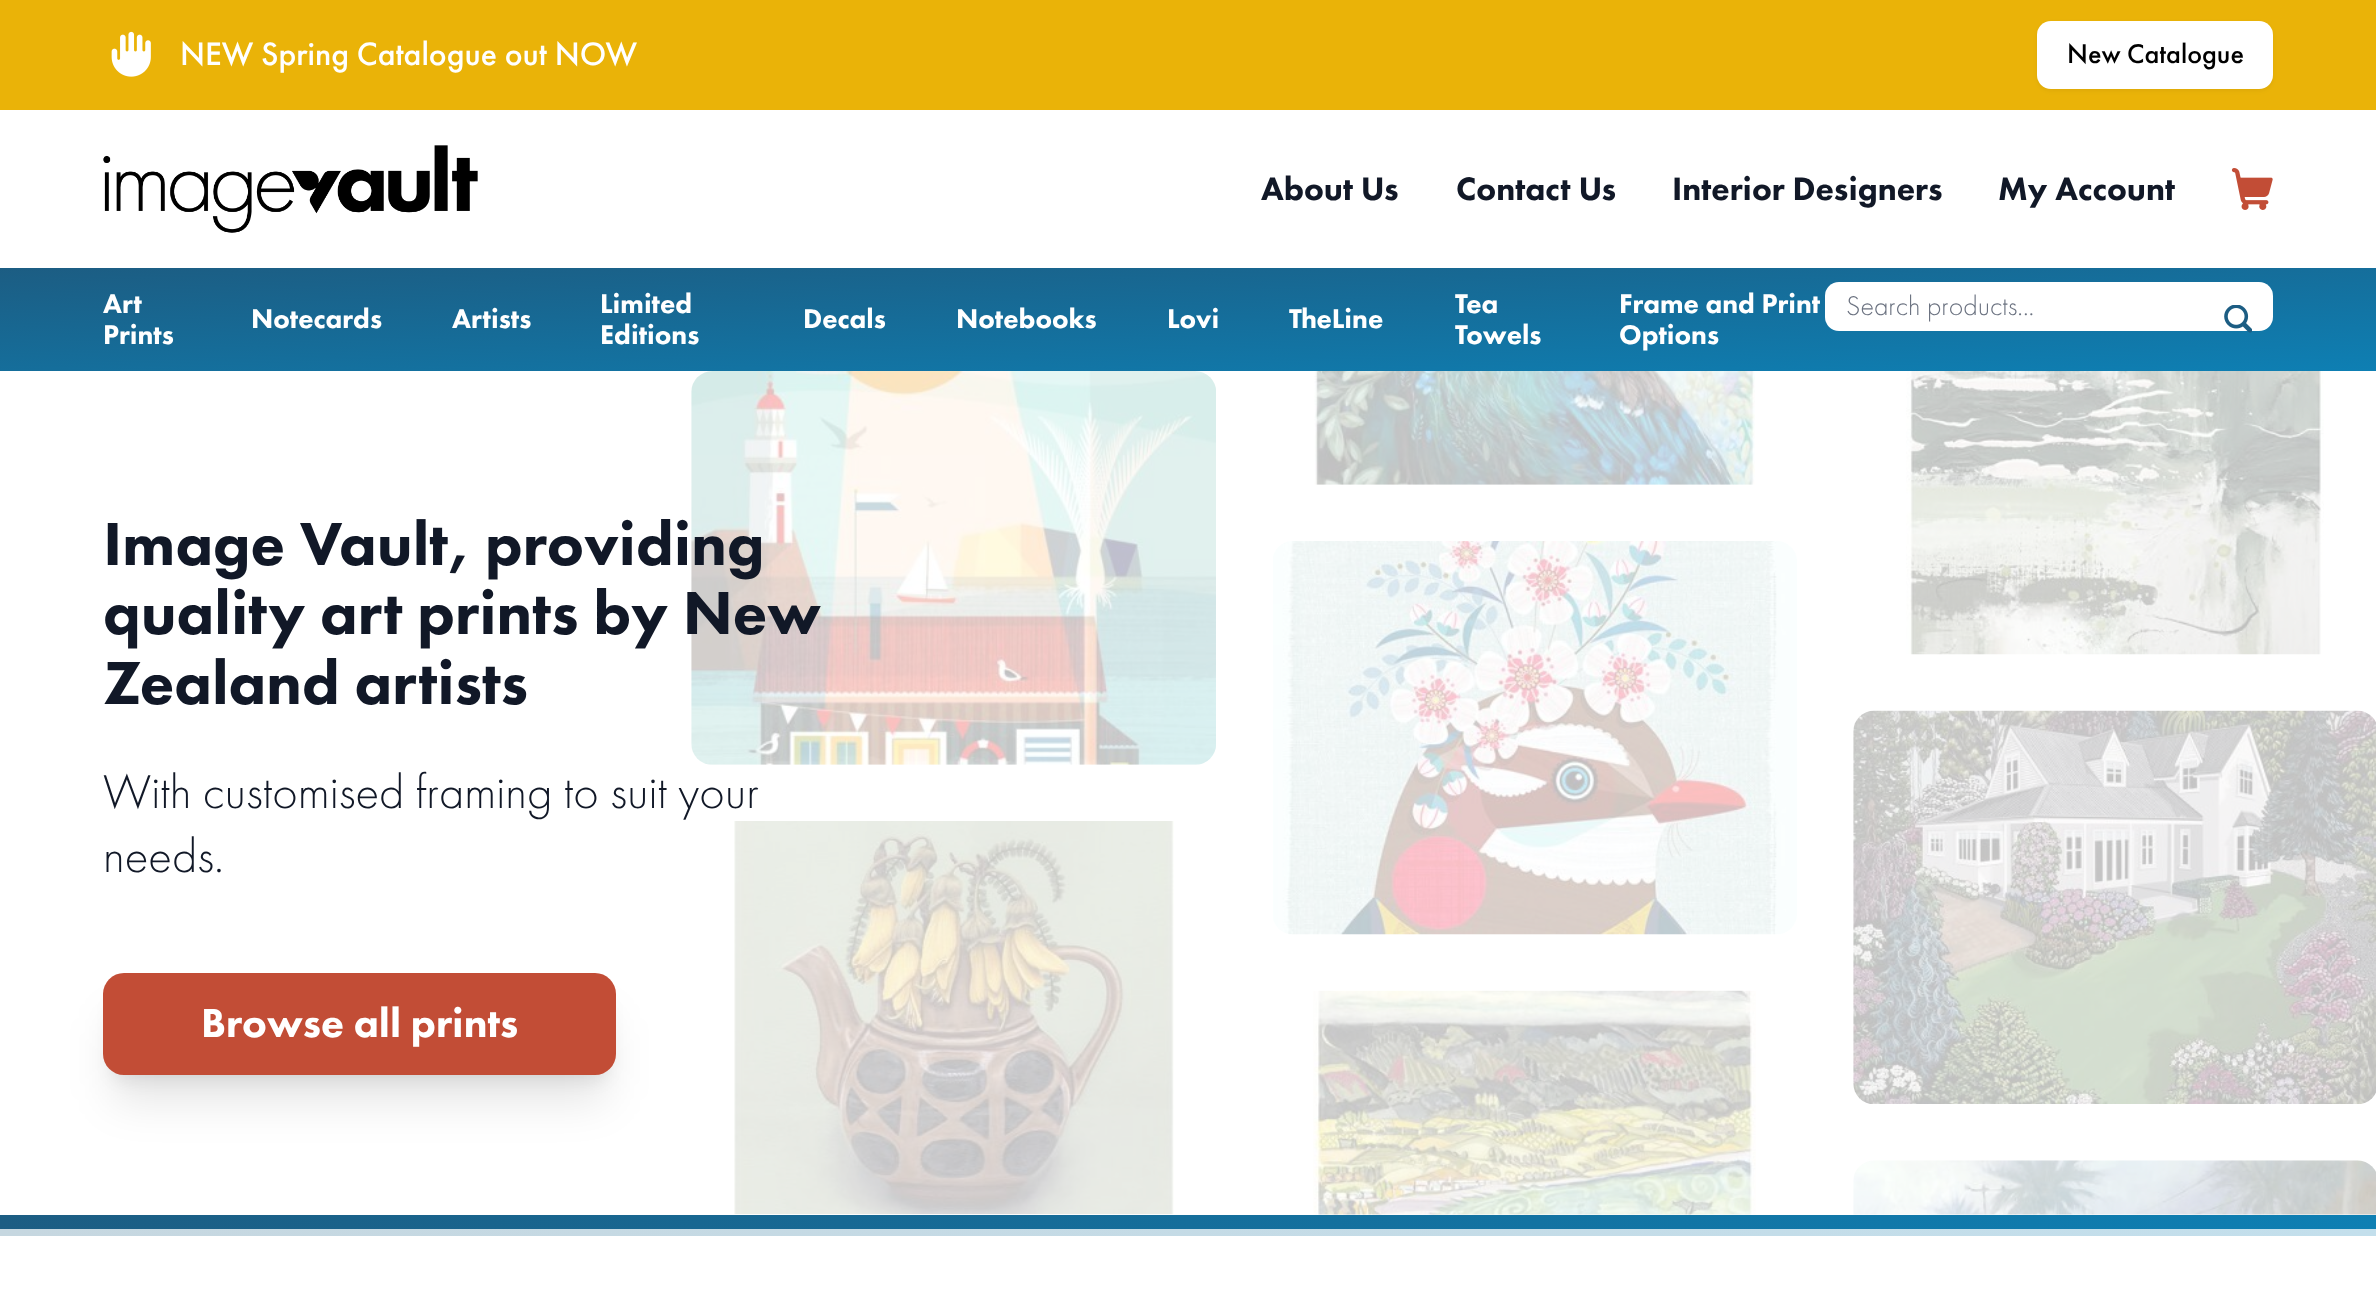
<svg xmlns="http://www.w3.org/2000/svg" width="2376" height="1306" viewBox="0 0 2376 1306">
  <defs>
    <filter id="blur1" x="-50%" y="-200%" width="200%" height="500%"><feGaussianBlur stdDeviation="2"/></filter>
    <linearGradient id="g1" gradientUnits="userSpaceOnUse" x1="1184" y1="216" x2="1193" y2="422"><stop offset="0" stop-color="#1c5d83"/><stop offset="1" stop-color="#0e7fb3"/></linearGradient>
    <filter id="blur2" x="-50%" y="-200%" width="200%" height="500%"><feGaussianBlur stdDeviation="9"/></filter>
    <filter id="blur3" x="-50%" y="-200%" width="200%" height="500%"><feGaussianBlur stdDeviation="22"/></filter>
    <linearGradient id="g2" gradientUnits="userSpaceOnUse" x1="0" y1="1222" x2="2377" y2="1222"><stop offset="0" stop-color="#1c5d83"/><stop offset="1" stop-color="#0e7fb3"/></linearGradient>
    <linearGradient id="g3" gradientUnits="userSpaceOnUse" x1="0" y1="1232" x2="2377" y2="1232"><stop offset="0" stop-color="#c6d7e0"/><stop offset="1" stop-color="#c3dfec"/></linearGradient>
  </defs>
  <rect width="100%" height="100%" fill="#ffffff"/>
  <rect x="0" y="0" width="2376" height="110" fill="#eab308"/>
  <image x="111" y="31" width="40" height="46" href="img1.png"/>
  <text x="180" y="65" font-family="Futura PT" font-size="33.6" font-weight="500" fill="#ffffff">NEW Spring Catalogue out NOW</text>
  <rect x="2037" y="23" width="236" height="68" rx="14" fill="#000000" fill-opacity="0.05" filter="url(#blur1)"/>
  <rect x="2037" y="21" width="236" height="68" rx="14" fill="#ffffff"/>
  <text x="2067" y="63" font-family="Futura PT" font-size="28" font-weight="500" fill="#000000">New Catalogue</text>
  <image x="103" y="145" width="375" height="88" href="img2.png"/>
  <text x="1261" y="200" font-family="Futura PT" font-size="33.6" font-weight="900" fill="#111827">About Us</text>
  <text x="1456" y="200" font-family="Futura PT" font-size="33.6" font-weight="900" fill="#111827">Contact Us</text>
  <text x="1672" y="200" font-family="Futura PT" font-size="33.6" font-weight="900" fill="#111827">Interior Designers</text>
  <text x="1998" y="200" font-family="Futura PT" font-size="33.6" font-weight="900" fill="#111827">My Account</text>
  <image x="2231" y="168" width="42" height="42" href="img3.png"/>
  <rect x="0" y="268" width="2376" height="103" fill="url(#g1)"/>
  <text x="103" y="313" font-family="Futura PT" font-size="28" font-weight="900" fill="#ffffff">Art</text>
  <text x="103" y="344" font-family="Futura PT" font-size="28" font-weight="900" fill="#ffffff">Prints</text>
  <text x="251" y="328" font-family="Futura PT" font-size="28" font-weight="900" fill="#ffffff">Notecards</text>
  <text x="452" y="328" font-family="Futura PT" font-size="28" font-weight="900" fill="#ffffff">Artists</text>
  <text x="600" y="313" font-family="Futura PT" font-size="28" font-weight="900" fill="#ffffff">Limited</text>
  <text x="600" y="344" font-family="Futura PT" font-size="28" font-weight="900" fill="#ffffff">Editions</text>
  <text x="803" y="328" font-family="Futura PT" font-size="28" font-weight="900" fill="#ffffff">Decals</text>
  <text x="956" y="328" font-family="Futura PT" font-size="28" font-weight="900" fill="#ffffff">Notebooks</text>
  <text x="1167" y="328" font-family="Futura PT" font-size="28" font-weight="900" fill="#ffffff">Lovi</text>
  <text x="1289" y="328" font-family="Futura PT" font-size="28" font-weight="900" fill="#ffffff">TheLine</text>
  <text x="1455" y="313" font-family="Futura PT" font-size="28" font-weight="900" fill="#ffffff">Tea</text>
  <text x="1455" y="344" font-family="Futura PT" font-size="28" font-weight="900" fill="#ffffff">Towels</text>
  <text x="1619" y="313" font-family="Futura PT" font-size="28" font-weight="900" fill="#ffffff">Frame and Print</text>
  <text x="1619" y="344" font-family="Futura PT" font-size="28" font-weight="900" fill="#ffffff">Options</text>
  <rect x="1825" y="282" width="448" height="49" rx="14" fill="#ffffff"/>
  <text x="1846" y="315" font-family="Futura PT" font-size="28" font-weight="300" fill="#6b7280">Search products...</text>
  <image x="2224" y="305" width="28" height="28" href="img4.png"/>
  <image x="691" y="371" width="525" height="394" href="img5.png"/>
  <text x="103" y="565" font-family="Futura PT" font-size="63" font-weight="900" fill="#111827">Image Vault, providing</text>
  <text x="103" y="634" font-family="Futura PT" font-size="63" font-weight="900" fill="#111827">quality art prints by New</text>
  <text x="103" y="704" font-family="Futura PT" font-size="63" font-weight="900" fill="#111827">Zealand artists</text>
  <text x="103" y="808" font-family="Futura PT" font-size="49" font-weight="300" fill="#111827">With customised framing to suit your</text>
  <text x="103" y="872" font-family="Futura PT" font-size="49" font-weight="300" fill="#111827">needs.</text>
  <rect x="114" y="998" width="492" height="80" rx="11" fill="#000000" fill-opacity="0.1" filter="url(#blur2)"/>
  <rect x="112" y="1017" width="495" height="84" rx="12" fill="#000000" fill-opacity="0.1" filter="url(#blur3)"/>
  <rect x="103" y="973" width="513" height="102" rx="21" fill="#c24d36"/>
  <text x="201" y="1037" font-family="Futura PT" font-size="42" font-weight="900" fill="#ffffff">Browse all prints</text>
  <image x="734" y="821" width="440" height="394" href="img6.png"/>
  <image x="1314" y="371" width="441" height="114" href="img7.png"/>
  <image x="1273" y="541" width="524" height="394" href="img8.png"/>
  <image x="1313" y="990" width="443" height="225" href="img9.png"/>
  <image x="1906" y="371" width="418" height="284" href="img10.png"/>
  <image x="1853" y="710" width="523" height="394" href="img11.png"/>
  <image x="1853" y="1160" width="523" height="55" href="img12.png"/>
  <rect x="0" y="1215" width="2376" height="14" fill="url(#g2)"/>
  <rect x="0" y="1229" width="2376" height="7" fill="url(#g3)"/>
</svg>
